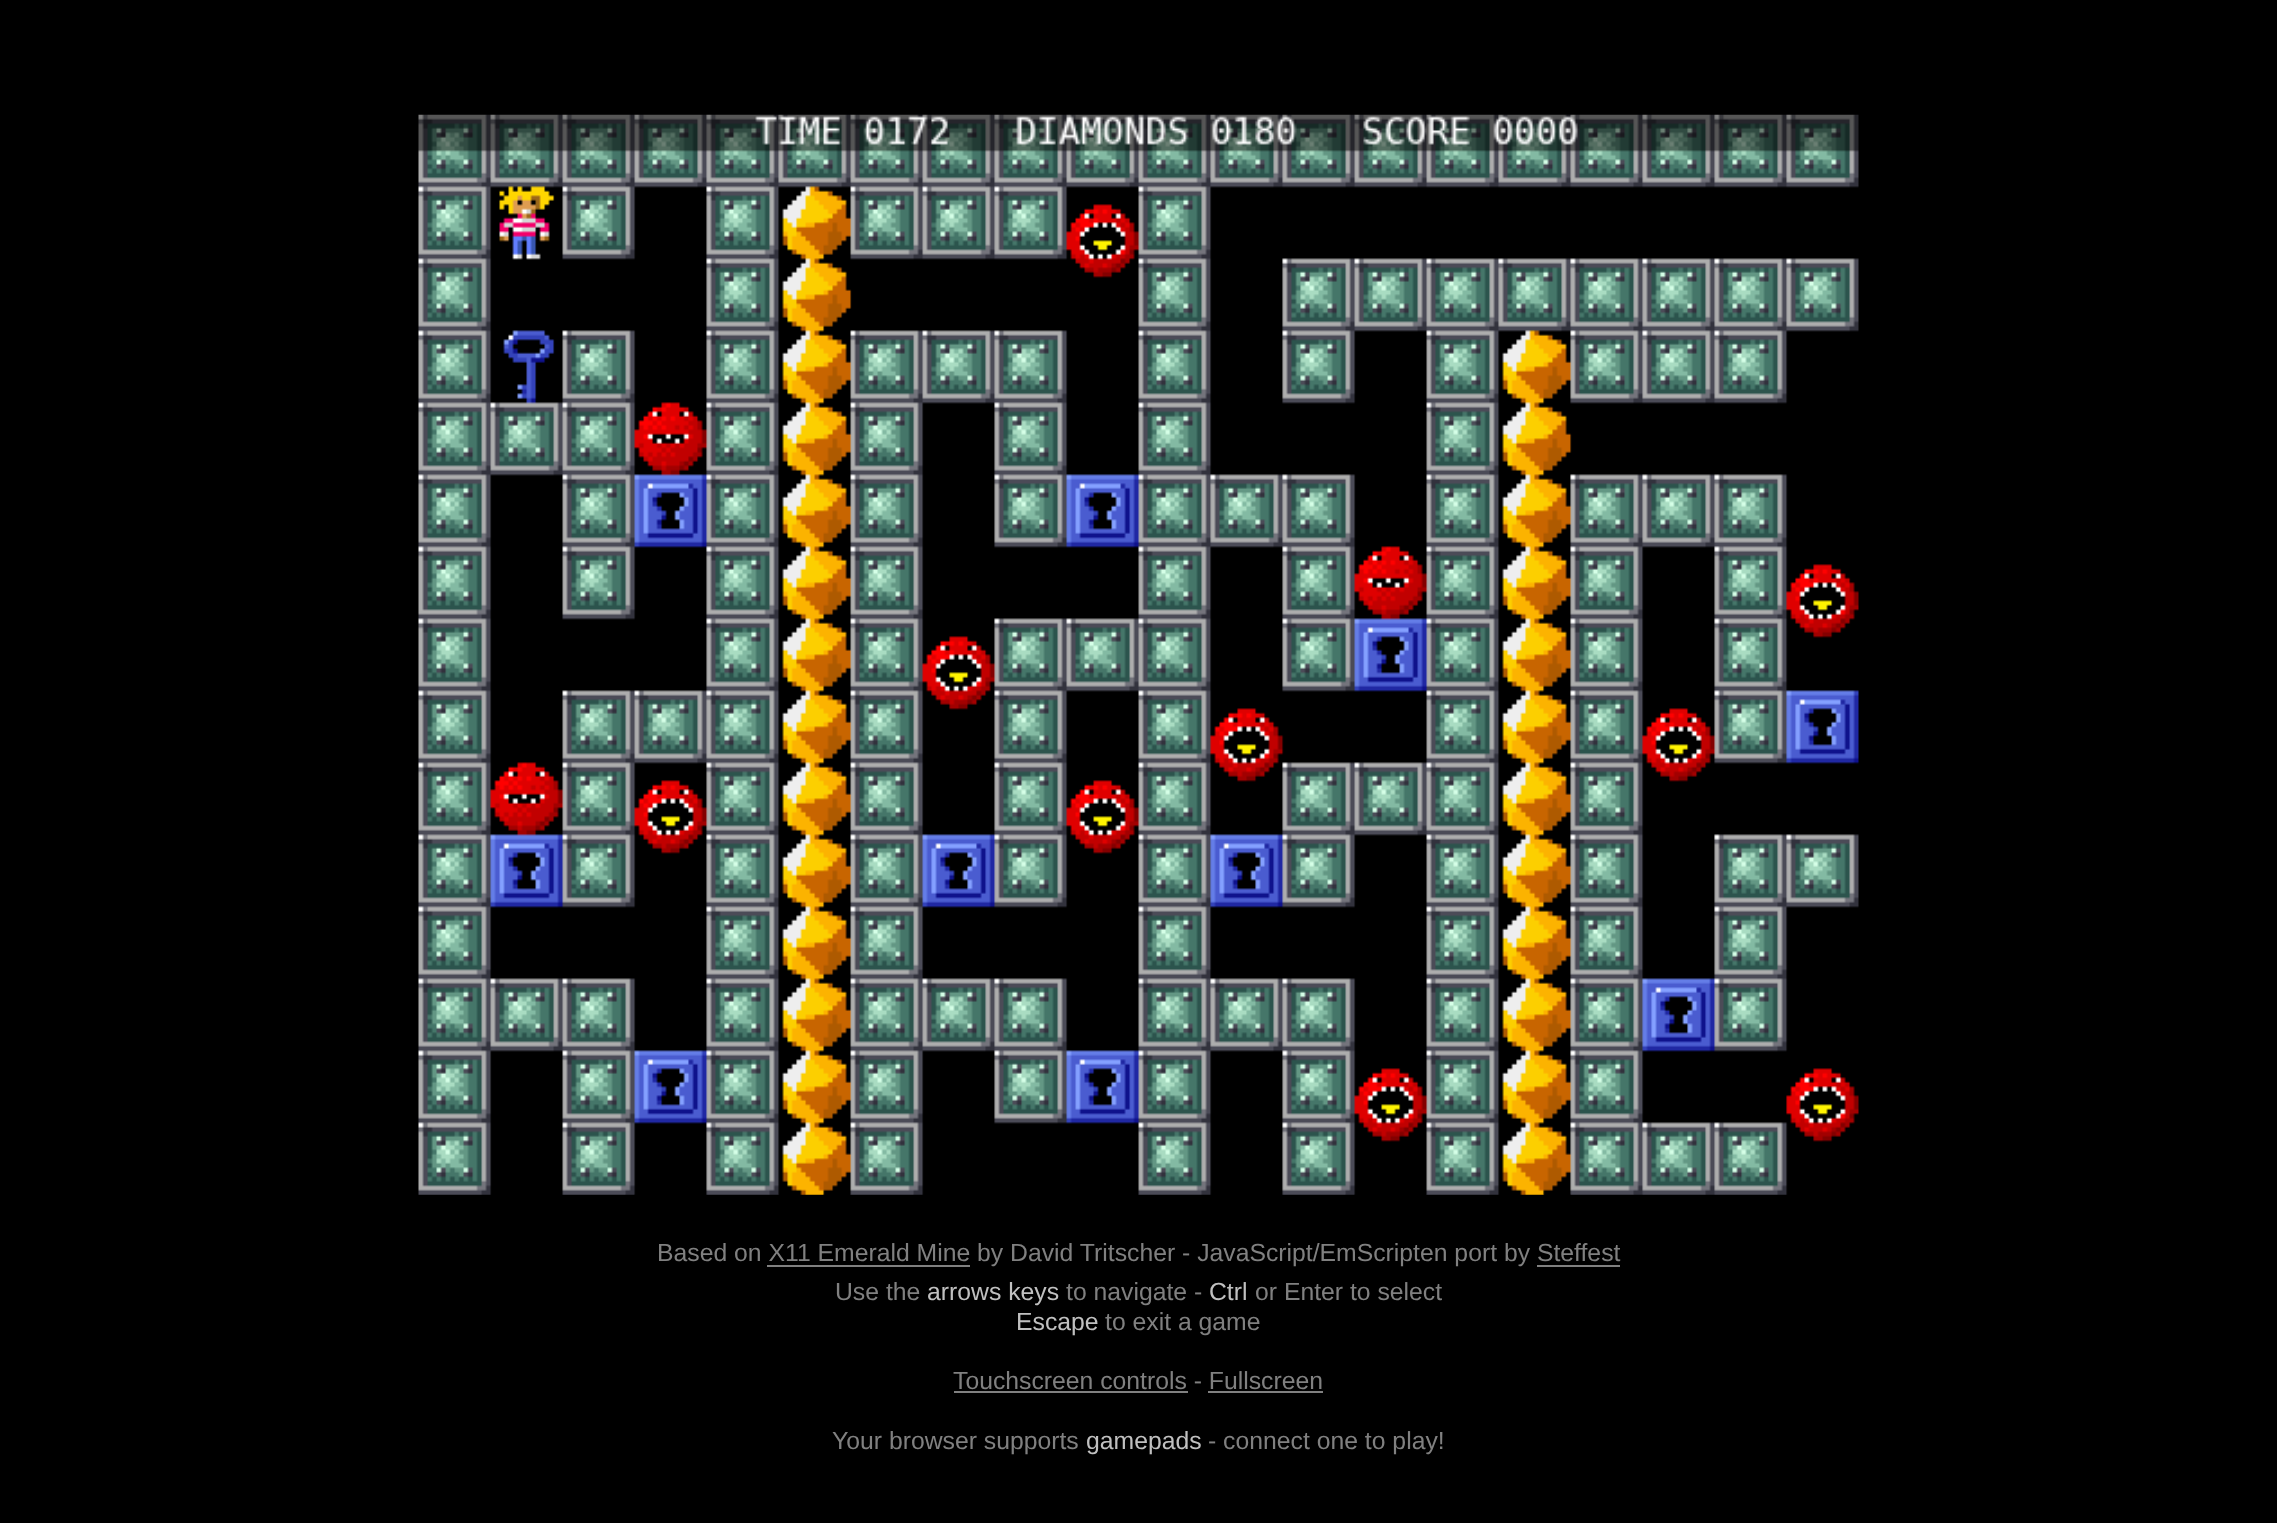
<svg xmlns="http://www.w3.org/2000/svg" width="2277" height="1523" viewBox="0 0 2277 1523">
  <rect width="100%" height="100%" fill="#000000"/>
  <image x="418" y="114" width="1441" height="1081" href="img1.png"/>
  <text x="657" y="1261" font-family="Liberation Sans" font-size="24.75" fill="#808080">Based on X11 Emerald Mine by David Tritscher - JavaScript/EmScripten port by Steffest</text>
  <rect x="767" y="1265" width="203" height="2" fill="#808080"/>
  <rect x="1537" y="1265" width="83" height="2" fill="#808080"/>
  <text x="835" y="1300" font-family="Liberation Sans" font-size="24.75" fill="#808080">Use the</text>
  <text x="927" y="1300" font-family="Liberation Sans" font-size="24.75" fill="#c0c0c0">arrows keys</text>
  <text x="1066" y="1300" font-family="Liberation Sans" font-size="24.75" fill="#808080">to navigate -</text>
  <text x="1209" y="1300" font-family="Liberation Sans" font-size="24.75" fill="#c0c0c0">Ctrl</text>
  <text x="1255" y="1300" font-family="Liberation Sans" font-size="24.75" fill="#808080">or Enter to select</text>
  <text x="1016" y="1330" font-family="Liberation Sans" font-size="24.75" fill="#c0c0c0">Escape</text>
  <text x="1105" y="1330" font-family="Liberation Sans" font-size="24.75" fill="#808080">to exit a game</text>
  <text x="953" y="1389" font-family="Liberation Sans" font-size="24.75" fill="#808080">Touchscreen controls - Fullscreen</text>
  <rect x="954" y="1391" width="234" height="2" fill="#808080"/>
  <rect x="1208" y="1391" width="115" height="2" fill="#808080"/>
  <text x="832" y="1449" font-family="Liberation Sans" font-size="24.75" fill="#808080">Your browser supports</text>
  <text x="1086" y="1449" font-family="Liberation Sans" font-size="24.75" fill="#c0c0c0">gamepads</text>
  <text x="1208" y="1449" font-family="Liberation Sans" font-size="24.75" fill="#808080">- connect one to play!</text>
</svg>
